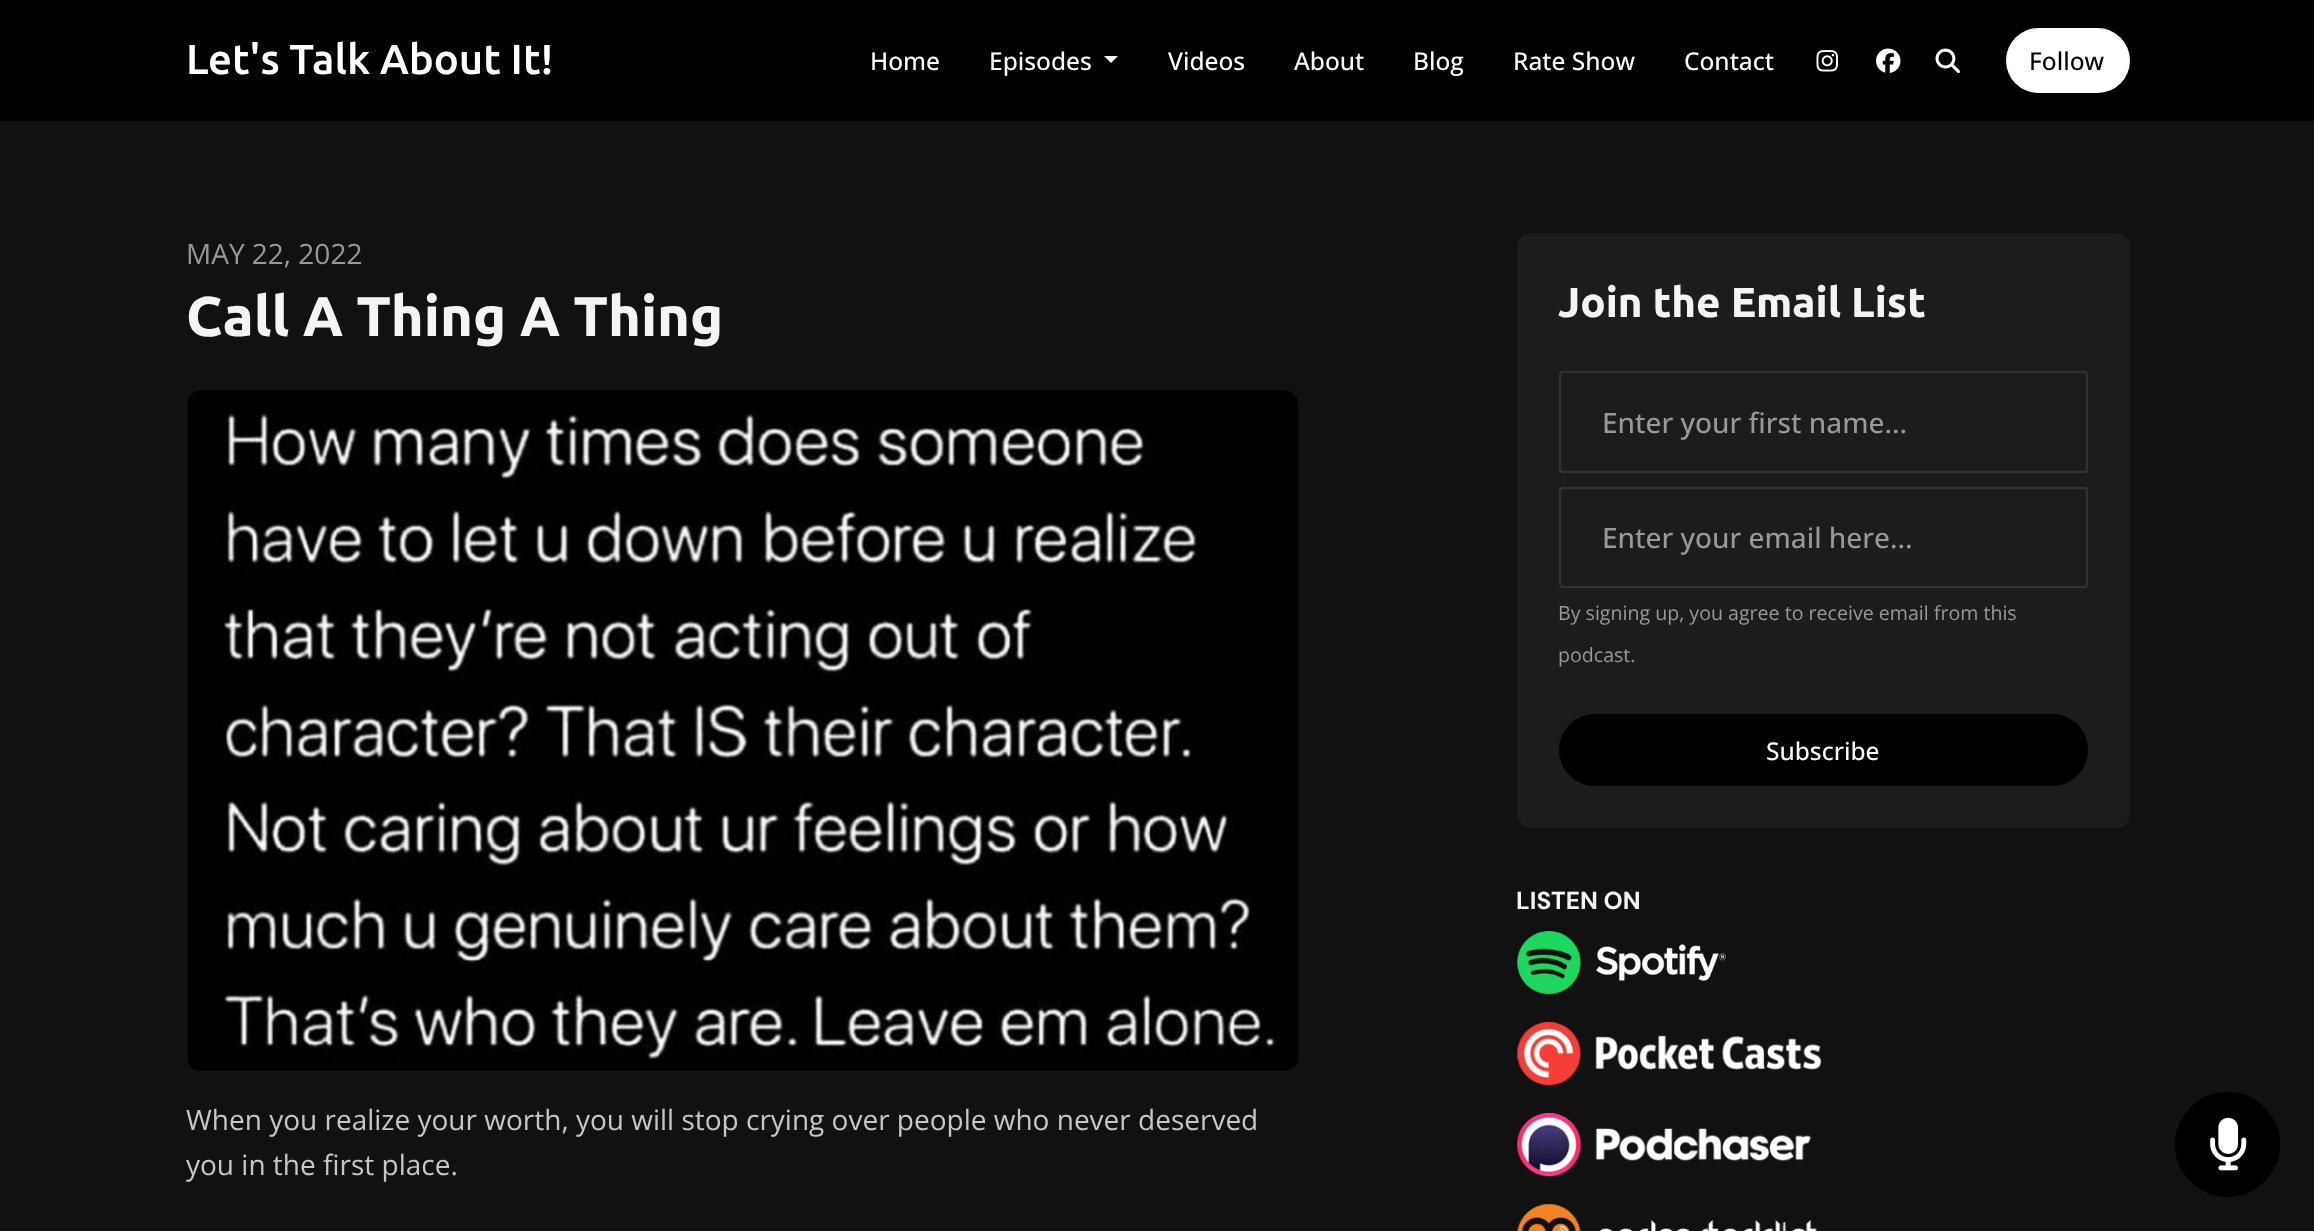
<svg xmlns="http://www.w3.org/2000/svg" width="2314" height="1231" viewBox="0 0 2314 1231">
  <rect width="100%" height="100%" fill="#111111"/>
  <rect x="0" y="0" width="2314" height="121" fill="#000000"/>
  <text x="186" y="74" font-family="Ubuntu" font-size="42" font-weight="500" fill="#ffffff">Let's Talk About It!</text>
  <text x="870" y="70" font-family="Open Sans" font-size="24.5" font-weight="500" fill="#ffffff">Home</text>
  <text x="989" y="70" font-family="Open Sans" font-size="24.5" font-weight="500" fill="#ffffff">Episodes</text>
  <path d="M1104 56H1118L1111 63Z" fill="#ffffff"/>
  <text x="1168" y="70" font-family="Open Sans" font-size="24.5" font-weight="500" fill="#ffffff">Videos</text>
  <text x="1294" y="70" font-family="Open Sans" font-size="24.5" font-weight="500" fill="#ffffff">About</text>
  <text x="1413" y="70" font-family="Open Sans" font-size="24.5" font-weight="500" fill="#ffffff">Blog</text>
  <text x="1513" y="70" font-family="Open Sans" font-size="24.5" font-weight="500" fill="#ffffff">Rate Show</text>
  <text x="1684" y="70" font-family="Open Sans" font-size="24.5" font-weight="500" fill="#ffffff">Contact</text>
  <image x="1816" y="50" width="22" height="22" href="img1.png"/>
  <image x="1876" y="48" width="25" height="25" href="img2.png"/>
  <image x="1935" y="48" width="25" height="25" href="img3.png"/>
  <rect x="2006" y="28" width="124" height="65" rx="32.5" fill="#ffffff"/>
  <text x="2029" y="70" font-family="Open Sans" font-size="24.5" font-weight="500" fill="#000000">Follow</text>
  <text x="186" y="264" font-family="Open Sans" font-size="28" fill="#999999">MAY 22, 2022</text>
  <text x="186" y="336" font-family="Ubuntu" font-size="56" font-weight="bold" fill="#f4f4f4">Call A Thing A Thing</text>
  <image x="187" y="390" width="1112" height="681" href="img4.png"/>
  <text x="186" y="1130" font-family="Open Sans" font-size="28" fill="#c7c7c7">When you realize your worth, you will stop crying over people who never deserved</text>
  <text x="186" y="1175" font-family="Open Sans" font-size="28" fill="#c7c7c7">you in the first place.</text>
  <rect x="1517" y="233" width="613" height="595" rx="14" fill="#1c1c1c"/>
  <text x="1558" y="317" font-family="Ubuntu" font-size="42" font-weight="bold" fill="#f4f4f4">Join the Email List</text>
  <rect x="1560" y="372" width="527" height="100" rx="3" fill="none" stroke="#323232" stroke-width="2"/>
  <text x="1602" y="433" font-family="Open Sans" font-size="28" font-weight="500" fill="#999999">Enter your first name...</text>
  <rect x="1560" y="488" width="527" height="99" rx="3" fill="none" stroke="#323232" stroke-width="2"/>
  <text x="1602" y="548" font-family="Open Sans" font-size="28" font-weight="500" fill="#999999">Enter your email here...</text>
  <text x="1558" y="620" font-family="Open Sans" font-size="19.6" fill="#999999">By signing up, you agree to receive email from this</text>
  <text x="1558" y="662" font-family="Open Sans" font-size="19.6" fill="#999999">podcast.</text>
  <rect x="1561" y="716" width="525" height="68" rx="34" fill="#000000" stroke="#000000" stroke-width="4"/>
  <text x="1766" y="760" font-family="Open Sans" font-size="24.5" font-weight="500" fill="#ffffff">Subscribe</text>
  <text x="1516" y="909" font-family="DM Sans" font-size="24.5" font-weight="bold" fill="#f4f4f4">LISTEN ON</text>
  <image x="1517" y="931" width="209" height="63" href="img5.png"/>
  <image x="1517" y="1022" width="305" height="63" href="img6.png"/>
  <image x="1517" y="1113" width="295" height="63" href="img7.png"/>
  <image x="1517" y="1204" width="300" height="27" href="img8.png"/>
  <circle cx="2227.5" cy="1144.5" r="51.5" fill="#000000" stroke="#000000" stroke-width="2"/>
  <image x="2210" y="1117" width="37" height="54" href="img9.png"/>
</svg>
